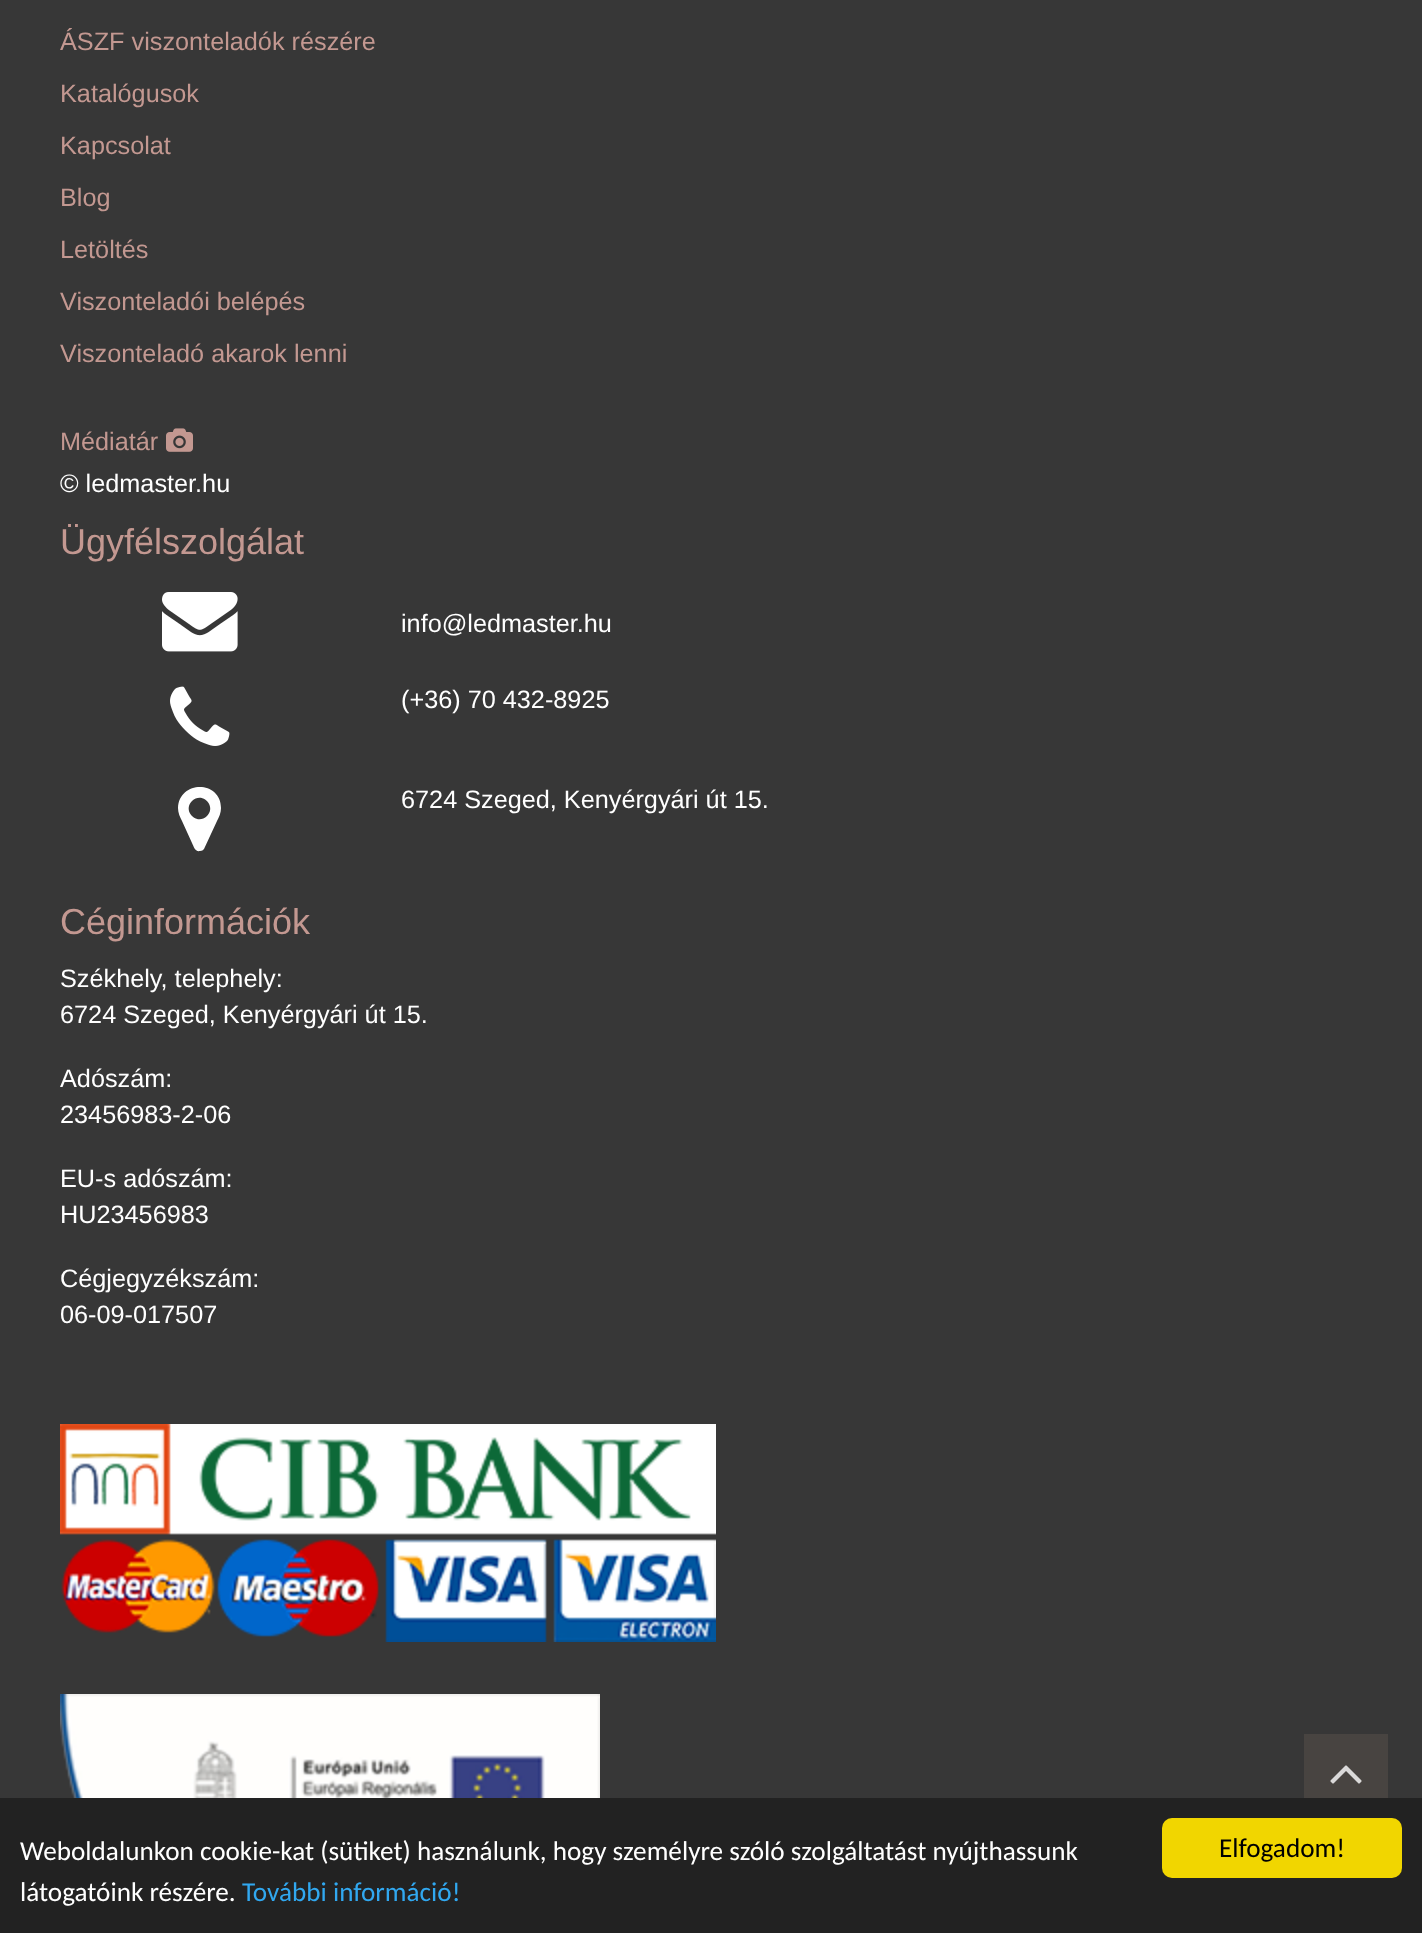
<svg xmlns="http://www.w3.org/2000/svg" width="1422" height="1933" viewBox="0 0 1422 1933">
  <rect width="100%" height="100%" fill="#373737"/>
  <text x="60" y="50" font-family="Liberation Sans" font-size="25.25" fill="#c39891">ÁSZF viszonteladók részére</text>
  <text x="60" y="102" font-family="Liberation Sans" font-size="25.25" fill="#c39891">Katalógusok</text>
  <text x="60" y="154" font-family="Liberation Sans" font-size="25.25" fill="#c39891">Kapcsolat</text>
  <text x="60" y="206" font-family="Liberation Sans" font-size="25.25" fill="#c39891">Blog</text>
  <text x="60" y="258" font-family="Liberation Sans" font-size="25.25" fill="#c39891">Letöltés</text>
  <text x="60" y="310" font-family="Liberation Sans" font-size="25.25" fill="#c39891">Viszonteladói belépés</text>
  <text x="60" y="362" font-family="Liberation Sans" font-size="25.25" fill="#c39891">Viszonteladó akarok lenni</text>
  <text x="60" y="450" font-family="Liberation Sans" font-size="25.25" fill="#c39891">Médiatár</text>
  <image x="166" y="428" width="27" height="24" href="img1.png"/>
  <text x="60" y="492" font-family="Liberation Sans" font-size="25.25" fill="#ffffff">© ledmaster.hu</text>
  <text x="60" y="554" font-family="Liberation Sans" font-size="36" fill="#c39891">Ügyfélszolgálat</text>
  <image x="162" y="592" width="76" height="60" href="img2.png"/>
  <text x="401" y="632" font-family="Liberation Sans" font-size="25.25" fill="#ffffff">info@ledmaster.hu</text>
  <image x="170" y="686" width="60" height="60" href="img3.png"/>
  <text x="401" y="708" font-family="Liberation Sans" font-size="25.25" fill="#ffffff">(+36) 70 432-8925</text>
  <path d="M207 816C217 806 202 791 192 801C182 811 197 826 207 816ZM221 808C221 813 219 817 217 821L204 849C203 850 202 851 200 851C195 852 194 847 192 843L182 821C180 817 178 813 178 808C179 780 221 780 221 808Z" fill="#ffffff"/>
  <text x="401" y="808" font-family="Liberation Sans" font-size="25.25" fill="#ffffff">6724 Szeged, Kenyérgyári út 15.</text>
  <text x="60" y="934" font-family="Liberation Sans" font-size="36" fill="#c39891">Céginformációk</text>
  <text x="60" y="987" font-family="Liberation Sans" font-size="25.25" fill="#ffffff">Székhely, telephely:</text>
  <text x="60" y="1023" font-family="Liberation Sans" font-size="25.25" fill="#ffffff">6724 Szeged, Kenyérgyári út 15.</text>
  <text x="60" y="1087" font-family="Liberation Sans" font-size="25.25" fill="#ffffff">Adószám:</text>
  <text x="60" y="1123" font-family="Liberation Sans" font-size="25.25" fill="#ffffff">23456983-2-06</text>
  <text x="60" y="1187" font-family="Liberation Sans" font-size="25.25" fill="#ffffff">EU-s adószám:</text>
  <text x="60" y="1223" font-family="Liberation Sans" font-size="25.25" fill="#ffffff">HU23456983</text>
  <text x="60" y="1287" font-family="Liberation Sans" font-size="25.25" fill="#ffffff">Cégjegyzékszám:</text>
  <text x="60" y="1323" font-family="Liberation Sans" font-size="25.25" fill="#ffffff">06-09-017507</text>
  <image x="60" y="1424" width="656" height="218" href="img4.png"/>
  <image x="60" y="1694" width="540" height="104" href="img5.png"/>
  <rect x="1304" y="1734" width="84" height="64" fill="#484441"/>
  <image x="1330" y="1765" width="32" height="19" href="img6.png"/>
  <rect x="0" y="1798" width="1422" height="135" fill="#222222"/>
  <text x="20" y="1860" font-family="Carlito" font-size="27.2" fill="#ffffff">Weboldalunkon cookie-kat (sütiket) használunk, hogy személyre szóló szolgáltatást nyújthassunk</text>
  <text x="20" y="1901" font-family="Carlito" font-size="27.2" fill="#ffffff">látogatóink részére.</text>
  <text x="242" y="1901" font-family="Carlito" font-size="27.2" fill="#31a8f0">További információ!</text>
  <rect x="1162" y="1818" width="240" height="60" rx="10" fill="#f1d600"/>
  <text x="1219" y="1857" font-family="Carlito" font-size="27.2" fill="#000000">Elfogadom!</text>
</svg>
